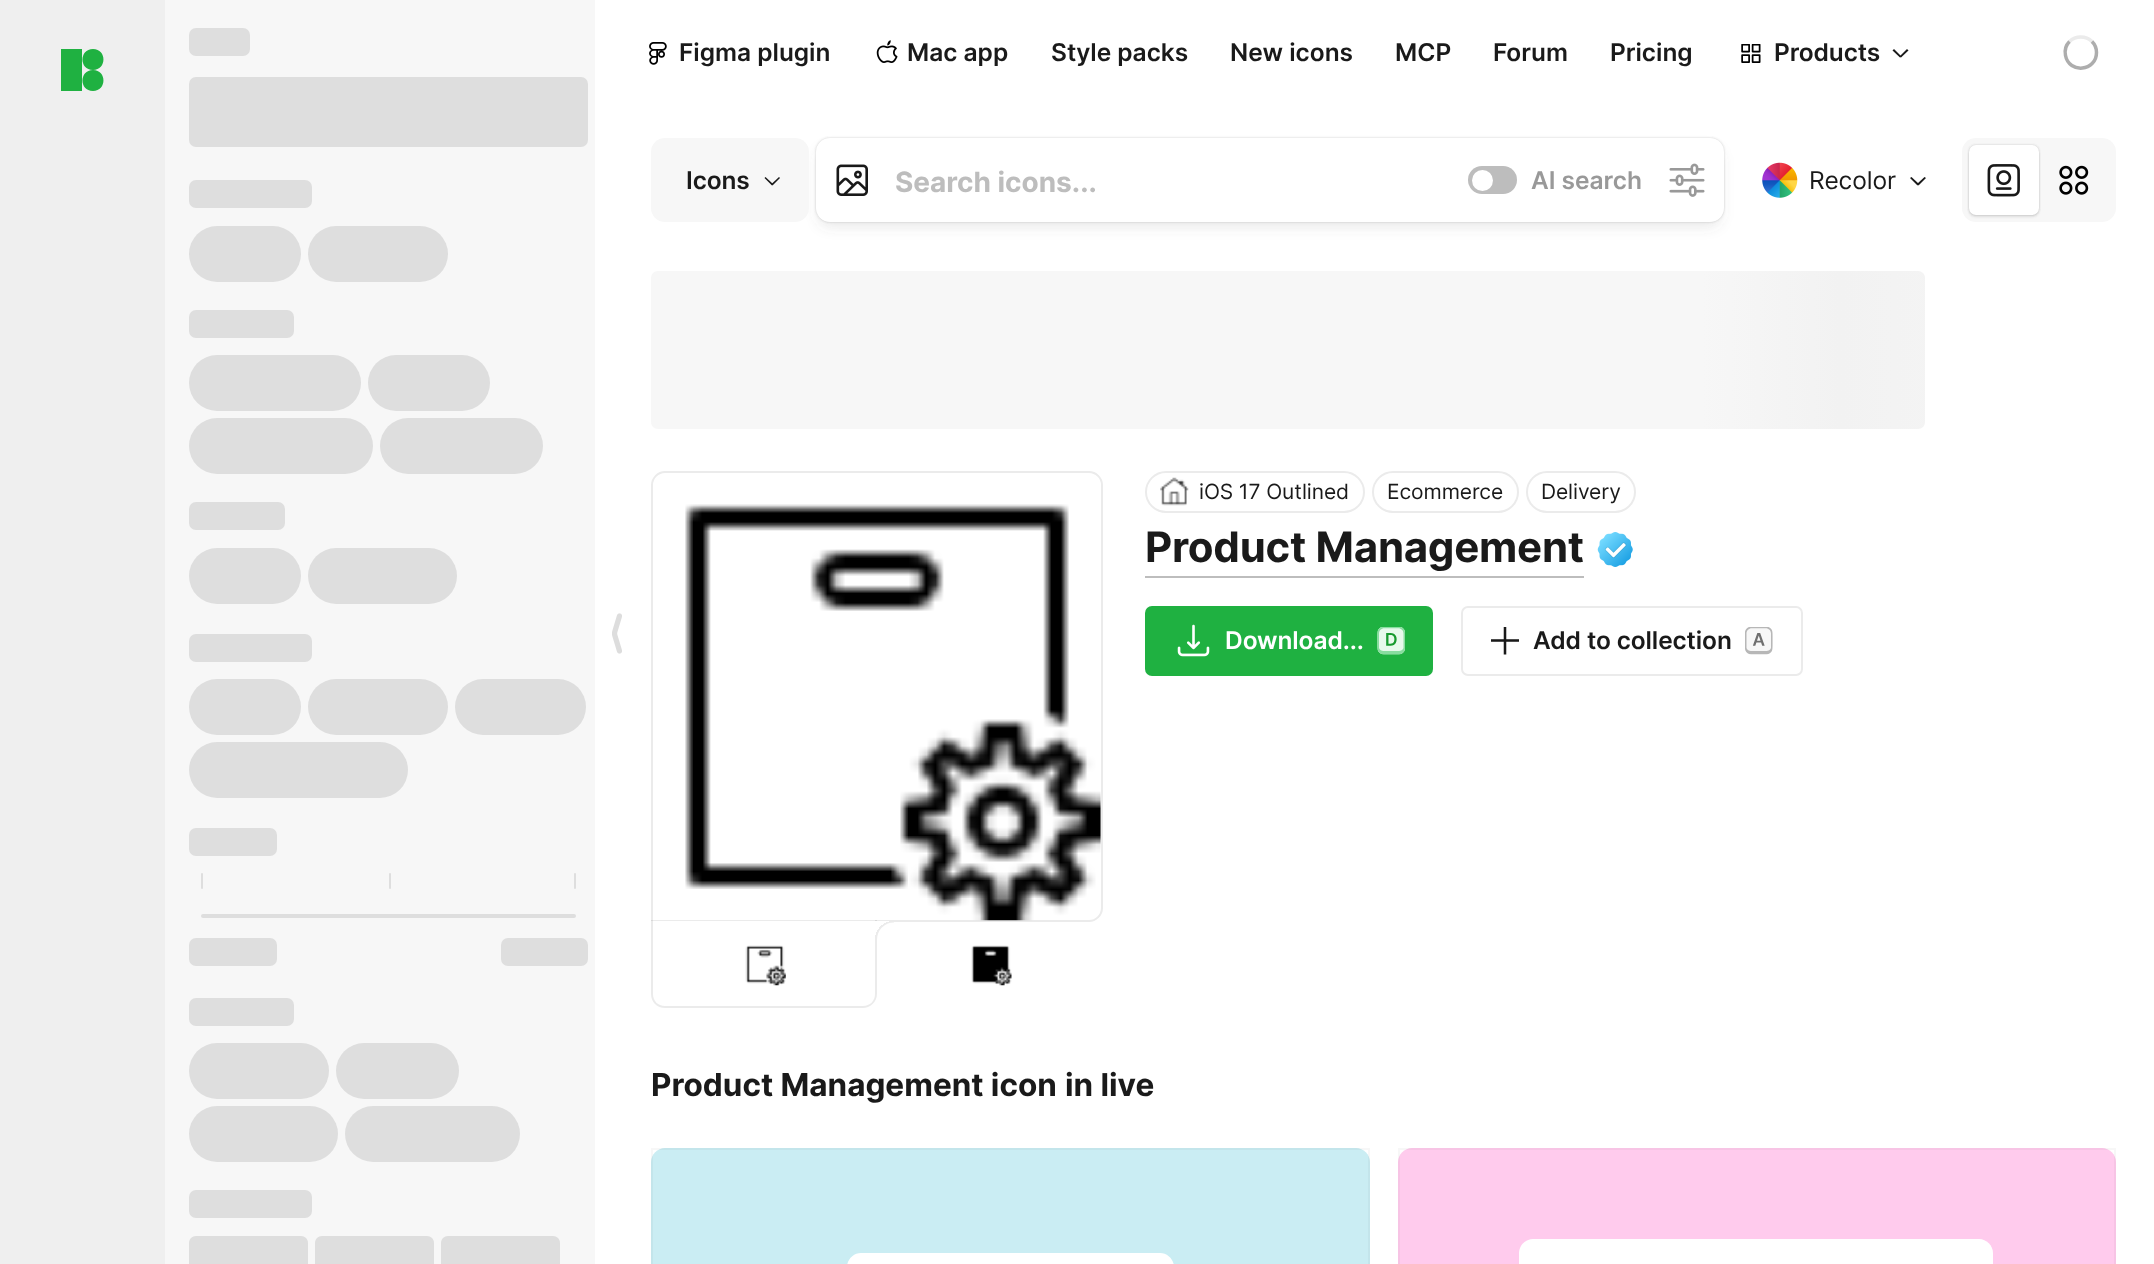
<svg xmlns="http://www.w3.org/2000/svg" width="2154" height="1264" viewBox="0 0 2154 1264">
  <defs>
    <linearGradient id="g1" gradientUnits="userSpaceOnUse" x1="-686" y1="119" x2="1064" y2="119"><stop offset="0.1" stop-color="#dedede"/><stop offset="0.18" stop-color="#ebebeb"/><stop offset="0.33" stop-color="#dedede"/></linearGradient>
    <linearGradient id="g2" gradientUnits="userSpaceOnUse" x1="-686" y1="168" x2="1064" y2="168"><stop offset="0.1" stop-color="#dedede"/><stop offset="0.18" stop-color="#ebebeb"/><stop offset="0.33" stop-color="#dedede"/></linearGradient>
    <linearGradient id="g3" gradientUnits="userSpaceOnUse" x1="-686" y1="271" x2="1064" y2="271"><stop offset="0.1" stop-color="#dedede"/><stop offset="0.18" stop-color="#ebebeb"/><stop offset="0.33" stop-color="#dedede"/></linearGradient>
    <linearGradient id="g4" gradientUnits="userSpaceOnUse" x1="-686" y1="317" x2="1064" y2="317"><stop offset="0.1" stop-color="#dedede"/><stop offset="0.18" stop-color="#ebebeb"/><stop offset="0.33" stop-color="#dedede"/></linearGradient>
    <linearGradient id="g5" gradientUnits="userSpaceOnUse" x1="-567" y1="317" x2="1183" y2="317"><stop offset="0.1" stop-color="#dedede"/><stop offset="0.18" stop-color="#ebebeb"/><stop offset="0.33" stop-color="#dedede"/></linearGradient>
    <linearGradient id="g6" gradientUnits="userSpaceOnUse" x1="-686" y1="401" x2="1064" y2="401"><stop offset="0.1" stop-color="#dedede"/><stop offset="0.18" stop-color="#ebebeb"/><stop offset="0.33" stop-color="#dedede"/></linearGradient>
    <linearGradient id="g7" gradientUnits="userSpaceOnUse" x1="-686" y1="446" x2="1064" y2="446"><stop offset="0.1" stop-color="#dedede"/><stop offset="0.18" stop-color="#ebebeb"/><stop offset="0.33" stop-color="#dedede"/></linearGradient>
    <linearGradient id="g8" gradientUnits="userSpaceOnUse" x1="-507" y1="446" x2="1243" y2="446"><stop offset="0.1" stop-color="#dedede"/><stop offset="0.18" stop-color="#ebebeb"/><stop offset="0.33" stop-color="#dedede"/></linearGradient>
    <linearGradient id="g9" gradientUnits="userSpaceOnUse" x1="-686" y1="509" x2="1064" y2="509"><stop offset="0.1" stop-color="#dedede"/><stop offset="0.18" stop-color="#ebebeb"/><stop offset="0.33" stop-color="#dedede"/></linearGradient>
    <linearGradient id="g10" gradientUnits="userSpaceOnUse" x1="-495" y1="509" x2="1255" y2="509"><stop offset="0.1" stop-color="#dedede"/><stop offset="0.18" stop-color="#ebebeb"/><stop offset="0.33" stop-color="#dedede"/></linearGradient>
    <linearGradient id="g11" gradientUnits="userSpaceOnUse" x1="-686" y1="593" x2="1064" y2="593"><stop offset="0.1" stop-color="#dedede"/><stop offset="0.18" stop-color="#ebebeb"/><stop offset="0.33" stop-color="#dedede"/></linearGradient>
    <linearGradient id="g12" gradientUnits="userSpaceOnUse" x1="-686" y1="639" x2="1064" y2="639"><stop offset="0.1" stop-color="#dedede"/><stop offset="0.18" stop-color="#ebebeb"/><stop offset="0.33" stop-color="#dedede"/></linearGradient>
    <linearGradient id="g13" gradientUnits="userSpaceOnUse" x1="-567" y1="639" x2="1183" y2="639"><stop offset="0.1" stop-color="#dedede"/><stop offset="0.18" stop-color="#ebebeb"/><stop offset="0.33" stop-color="#dedede"/></linearGradient>
    <linearGradient id="g14" gradientUnits="userSpaceOnUse" x1="-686" y1="725" x2="1064" y2="724"><stop offset="0.1" stop-color="#dedede"/><stop offset="0.18" stop-color="#ebebeb"/><stop offset="0.33" stop-color="#dedede"/></linearGradient>
    <linearGradient id="g15" gradientUnits="userSpaceOnUse" x1="-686" y1="770" x2="1064" y2="770"><stop offset="0.1" stop-color="#dedede"/><stop offset="0.18" stop-color="#ebebeb"/><stop offset="0.33" stop-color="#dedede"/></linearGradient>
    <linearGradient id="g16" gradientUnits="userSpaceOnUse" x1="-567" y1="770" x2="1183" y2="770"><stop offset="0.1" stop-color="#dedede"/><stop offset="0.18" stop-color="#ebebeb"/><stop offset="0.33" stop-color="#dedede"/></linearGradient>
    <linearGradient id="g17" gradientUnits="userSpaceOnUse" x1="-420" y1="770" x2="1330" y2="770"><stop offset="0.1" stop-color="#dedede"/><stop offset="0.18" stop-color="#ebebeb"/><stop offset="0.33" stop-color="#dedede"/></linearGradient>
    <linearGradient id="g18" gradientUnits="userSpaceOnUse" x1="-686" y1="833" x2="1064" y2="833"><stop offset="0.1" stop-color="#dedede"/><stop offset="0.18" stop-color="#ebebeb"/><stop offset="0.33" stop-color="#dedede"/></linearGradient>
    <linearGradient id="g19" gradientUnits="userSpaceOnUse" x1="-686" y1="919" x2="1064" y2="919"><stop offset="0.1" stop-color="#dedede"/><stop offset="0.18" stop-color="#ebebeb"/><stop offset="0.33" stop-color="#dedede"/></linearGradient>
    <linearGradient id="g20" gradientUnits="userSpaceOnUse" x1="-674" y1="964" x2="1076" y2="964"><stop offset="0.1" stop-color="#dedede"/><stop offset="0.18" stop-color="#ebebeb"/><stop offset="0.33" stop-color="#dedede"/></linearGradient>
    <linearGradient id="g21" gradientUnits="userSpaceOnUse" x1="-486" y1="964" x2="1264" y2="964"><stop offset="0.1" stop-color="#dedede"/><stop offset="0.18" stop-color="#ebebeb"/><stop offset="0.33" stop-color="#dedede"/></linearGradient>
    <linearGradient id="g22" gradientUnits="userSpaceOnUse" x1="-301" y1="964" x2="1449" y2="964"><stop offset="0.1" stop-color="#dedede"/><stop offset="0.18" stop-color="#ebebeb"/><stop offset="0.33" stop-color="#dedede"/></linearGradient>
    <linearGradient id="g23" gradientUnits="userSpaceOnUse" x1="-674" y1="1005" x2="1076" y2="1005"><stop offset="0.1" stop-color="#dedede"/><stop offset="0.18" stop-color="#ebebeb"/><stop offset="0.33" stop-color="#dedede"/></linearGradient>
    <linearGradient id="g24" gradientUnits="userSpaceOnUse" x1="-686" y1="1029" x2="1064" y2="1029"><stop offset="0.1" stop-color="#dedede"/><stop offset="0.18" stop-color="#ebebeb"/><stop offset="0.33" stop-color="#dedede"/></linearGradient>
    <linearGradient id="g25" gradientUnits="userSpaceOnUse" x1="-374" y1="1029" x2="1376" y2="1029"><stop offset="0.1" stop-color="#dedede"/><stop offset="0.18" stop-color="#ebebeb"/><stop offset="0.33" stop-color="#dedede"/></linearGradient>
    <linearGradient id="g26" gradientUnits="userSpaceOnUse" x1="-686" y1="1089" x2="1064" y2="1089"><stop offset="0.1" stop-color="#dedede"/><stop offset="0.18" stop-color="#ebebeb"/><stop offset="0.33" stop-color="#dedede"/></linearGradient>
    <linearGradient id="g27" gradientUnits="userSpaceOnUse" x1="-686" y1="1134" x2="1064" y2="1134"><stop offset="0.1" stop-color="#dedede"/><stop offset="0.18" stop-color="#ebebeb"/><stop offset="0.33" stop-color="#dedede"/></linearGradient>
    <linearGradient id="g28" gradientUnits="userSpaceOnUse" x1="-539" y1="1134" x2="1211" y2="1134"><stop offset="0.1" stop-color="#dedede"/><stop offset="0.18" stop-color="#ebebeb"/><stop offset="0.33" stop-color="#dedede"/></linearGradient>
    <linearGradient id="g29" gradientUnits="userSpaceOnUse" x1="-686" y1="1197" x2="1064" y2="1197"><stop offset="0.1" stop-color="#dedede"/><stop offset="0.18" stop-color="#ebebeb"/><stop offset="0.33" stop-color="#dedede"/></linearGradient>
    <linearGradient id="g30" gradientUnits="userSpaceOnUse" x1="-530" y1="1197" x2="1220" y2="1197"><stop offset="0.1" stop-color="#dedede"/><stop offset="0.18" stop-color="#ebebeb"/><stop offset="0.33" stop-color="#dedede"/></linearGradient>
    <linearGradient id="g31" gradientUnits="userSpaceOnUse" x1="-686" y1="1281" x2="1064" y2="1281"><stop offset="0.1" stop-color="#dedede"/><stop offset="0.18" stop-color="#ebebeb"/><stop offset="0.33" stop-color="#dedede"/></linearGradient>
    <linearGradient id="g32" gradientUnits="userSpaceOnUse" x1="-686" y1="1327" x2="1064" y2="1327"><stop offset="0.1" stop-color="#dedede"/><stop offset="0.18" stop-color="#ebebeb"/><stop offset="0.33" stop-color="#dedede"/></linearGradient>
    <linearGradient id="g33" gradientUnits="userSpaceOnUse" x1="-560" y1="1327" x2="1190" y2="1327"><stop offset="0.1" stop-color="#dedede"/><stop offset="0.18" stop-color="#ebebeb"/><stop offset="0.33" stop-color="#dedede"/></linearGradient>
    <linearGradient id="g34" gradientUnits="userSpaceOnUse" x1="-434" y1="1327" x2="1316" y2="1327"><stop offset="0.1" stop-color="#dedede"/><stop offset="0.18" stop-color="#ebebeb"/><stop offset="0.33" stop-color="#dedede"/></linearGradient>
    <filter id="blur1" x="-50%" y="-200%" width="200%" height="500%"><feGaussianBlur stdDeviation="7"/></filter>
    <filter id="blur2" x="-50%" y="-200%" width="200%" height="500%"><feGaussianBlur stdDeviation="1"/></filter>
    <linearGradient id="g35" gradientUnits="userSpaceOnUse" x1="-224" y1="362" x2="1526" y2="362"><stop offset="0.1" stop-color="#f7f7f7"/><stop offset="0.18" stop-color="#f3f3f3"/><stop offset="0.33" stop-color="#f7f7f7"/></linearGradient>
    <linearGradient id="g36" gradientUnits="userSpaceOnUse" x1="1526" y1="362" x2="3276" y2="362"><stop offset="0.1" stop-color="#f7f7f7"/><stop offset="0.18" stop-color="#f2f2f2"/><stop offset="0.33" stop-color="#f7f7f7"/></linearGradient>
    <radialGradient id="g37" gradientUnits="userSpaceOnUse" cx="894" cy="940" r="27"><stop offset="0.71" stop-color="#ebebeb"/><stop offset="0.71" stop-color="#ffffff"/></radialGradient>
  </defs>
  <rect width="100%" height="100%" fill="#ffffff"/>
  <rect x="0" y="0" width="165" height="1264" fill="#efefef"/>
  <rect x="61" y="49" width="21" height="42" fill="#1fb141"/>
  <path d="M93 70C107 70 107 49 93 49C79 49 79 70 93 70ZM93 91C107 91 107 70 93 70C79 70 79 91 93 91Z" fill="#1fb141"/>
  <rect x="165" y="0" width="430" height="1264" fill="#f7f7f7"/>
  <rect x="189" y="28" width="61" height="28" rx="7" fill="url(#g1)"/>
  <rect x="189" y="77" width="399" height="70" rx="7" fill="url(#g2)"/>
  <rect x="189" y="180" width="123" height="28" rx="7" fill="url(#g3)"/>
  <rect x="189" y="226" width="112" height="56" rx="28" fill="url(#g4)"/>
  <rect x="308" y="226" width="140" height="56" rx="28" fill="url(#g5)"/>
  <rect x="189" y="310" width="105" height="28" rx="7" fill="url(#g6)"/>
  <rect x="189" y="355" width="172" height="56" rx="28" fill="url(#g7)"/>
  <rect x="368" y="355" width="122" height="56" rx="28" fill="url(#g8)"/>
  <rect x="189" y="418" width="184" height="56" rx="28" fill="url(#g9)"/>
  <rect x="380" y="418" width="163" height="56" rx="28" fill="url(#g10)"/>
  <rect x="189" y="502" width="96" height="28" rx="7" fill="url(#g11)"/>
  <rect x="189" y="548" width="112" height="56" rx="28" fill="url(#g12)"/>
  <rect x="308" y="548" width="149" height="56" rx="28" fill="url(#g13)"/>
  <rect x="189" y="634" width="123" height="28" rx="7" fill="url(#g14)"/>
  <rect x="189" y="679" width="112" height="56" rx="28" fill="url(#g15)"/>
  <rect x="308" y="679" width="140" height="56" rx="28" fill="url(#g16)"/>
  <rect x="455" y="679" width="131" height="56" rx="28" fill="url(#g17)"/>
  <rect x="189" y="742" width="219" height="56" rx="28" fill="url(#g18)"/>
  <rect x="189" y="828" width="88" height="28" rx="7" fill="url(#g19)"/>
  <rect x="201" y="873" width="2" height="16" rx="1" fill="url(#g20)"/>
  <rect x="389" y="873" width="2" height="16" rx="1" fill="url(#g21)"/>
  <rect x="574" y="873" width="2" height="16" rx="1" fill="url(#g22)"/>
  <rect x="201" y="914" width="375" height="4" rx="2" fill="url(#g23)"/>
  <rect x="189" y="938" width="88" height="28" rx="7" fill="url(#g24)"/>
  <rect x="501" y="938" width="87" height="28" rx="7" fill="url(#g25)"/>
  <rect x="189" y="998" width="105" height="28" rx="7" fill="url(#g26)"/>
  <rect x="189" y="1043" width="140" height="56" rx="28" fill="url(#g27)"/>
  <rect x="336" y="1043" width="123" height="56" rx="28" fill="url(#g28)"/>
  <rect x="189" y="1106" width="149" height="56" rx="28" fill="url(#g29)"/>
  <rect x="345" y="1106" width="175" height="56" rx="28" fill="url(#g30)"/>
  <rect x="189" y="1190" width="123" height="28" rx="7" fill="url(#g31)"/>
  <path d="M196 1236H301C305 1236 308 1239 308 1243V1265H189V1243C189 1239 192 1236 196 1236Z" fill="url(#g32)"/>
  <path d="M322 1236H427C431 1236 434 1239 434 1243V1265H315V1243C315 1239 318 1236 322 1236Z" fill="url(#g33)"/>
  <path d="M448 1236H553C557 1236 560 1239 560 1243V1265H441V1243C441 1239 444 1236 448 1236Z" fill="url(#g34)"/>
  <image x="612" y="613" width="10" height="41" href="img1.png"/>
  <image x="649" y="42" width="18" height="23" href="img2.png"/>
  <text x="679" y="61" font-family="Inter" font-size="24.5" font-weight="600" fill="#1a1a1a">Figma plugin</text>
  <image x="876" y="40" width="22" height="23" href="img3.png"/>
  <text x="907" y="61" font-family="Inter" font-size="24.5" font-weight="600" fill="#1a1a1a">Mac app</text>
  <text x="1051" y="61" font-family="Inter" font-size="24.5" font-weight="600" fill="#1a1a1a">Style packs</text>
  <text x="1230" y="61" font-family="Inter" font-size="24.5" font-weight="600" fill="#1a1a1a">New icons</text>
  <text x="1395" y="61" font-family="Inter" font-size="24.5" font-weight="600" fill="#1a1a1a">MCP</text>
  <text x="1493" y="61" font-family="Inter" font-size="24.5" font-weight="600" fill="#1a1a1a">Forum</text>
  <text x="1610" y="61" font-family="Inter" font-size="24.5" font-weight="600" fill="#1a1a1a">Pricing</text>
  <image x="1741" y="44" width="20" height="19" href="img4.png"/>
  <text x="1774" y="61" font-family="Inter" font-size="24.5" font-weight="600" letter-spacing="-0.1" fill="#1a1a1a">Products</text>
  <path d="M1894 49L1901.5 56.5L1900 57.5L1892.5 50.5Z" fill="#1a1a1a"/>
  <path d="M1899.5 56.5L1907 49L1908.5 50.5L1901 57.5Z" fill="#1a1a1a"/>
  <path d="M2069.5 41.5C2075.5 35.5 2086 35.5 2092 41.5" fill="none" stroke="#ebebeb" stroke-width="3.5"/>
  <path d="M2092 41.5C2095 44.5 2096.5 48.5 2096.5 52.5C2096.5 71.5 2069 74 2065.5 55.5C2064.5 50.5 2066 45 2069.5 41.5" fill="none" stroke="#999999" stroke-opacity="0.8" stroke-width="3.5"/>
  <rect x="819" y="149" width="901" height="77" rx="11" fill="#606060" fill-opacity="0.15" filter="url(#blur1)"/>
  <rect x="651" y="138" width="158" height="84" rx="14" fill="#f7f7f7"/>
  <text x="686" y="189" font-family="Inter" font-size="24.5" font-weight="600" letter-spacing="-0.1" fill="#1a1a1a">Icons</text>
  <path d="M765.5 177L773 184L772 185.5L764.5 178Z" fill="#1a1a1a"/>
  <path d="M771.5 184L779 177L780 178L772.5 185.5Z" fill="#1a1a1a"/>
  <rect x="816" y="138" width="908" height="84" rx="14" fill="#606060" fill-opacity="0.31" filter="url(#blur2)"/>
  <rect x="816" y="138" width="908" height="84" rx="14" fill="#ffffff"/>
  <image x="836" y="164" width="32" height="32" href="img5.png"/>
  <text x="895" y="192" font-family="Inter" font-size="28" font-weight="bold" fill="#bdbdbd">Search icons...</text>
  <rect x="1468" y="166" width="49" height="28" rx="14" fill="#bdbdbd"/>
  <circle cx="1482.5" cy="180.5" r="10.5" fill="#ffffff"/>
  <text x="1531" y="189" font-family="Inter" font-size="24.5" font-weight="600" fill="#999999">AI search</text>
  <image x="1669" y="163" width="36" height="34" href="img6.png"/>
  <image x="1762" y="162" width="36" height="36" href="img7.png"/>
  <text x="1809" y="189" font-family="Inter" font-size="24.5" letter-spacing="-0.1" fill="#1a1a1a">Recolor</text>
  <path d="M1911.5 177L1919 184L1917.5 185.5L1910 178Z" fill="#1a1a1a"/>
  <path d="M1917 184L1924.5 177L1926 178L1918.5 185.5Z" fill="#1a1a1a"/>
  <rect x="1962" y="138" width="154" height="84" rx="14" fill="#f7f7f7"/>
  <rect x="1969" y="147" width="70" height="70" rx="7" fill="#606060" fill-opacity="0.15" filter="url(#blur2)"/>
  <rect x="1969" y="145" width="70" height="70" rx="7" fill="#606060" fill-opacity="0.31" filter="url(#blur2)"/>
  <rect x="1969" y="145" width="70" height="70" rx="7" fill="#ffffff"/>
  <image x="1987" y="164" width="33" height="33" href="img8.png"/>
  <image x="2059" y="165" width="30" height="30" href="img9.png"/>
  <path d="M658 271H1526V429H658C654 429 651 426 651 422V278C651 274 654 271 658 271Z" fill="url(#g35)"/>
  <path d="M1526 271H1918C1922 271 1925 274 1925 278V422C1925 426 1922 429 1918 429H1526Z" fill="url(#g36)"/>
  <path d="M665 472H1089C1096 472 1102 478 1102 485V908C1102 915 1096 921 1089 921H652V485C652 478 658 472 665 472Z" fill="none" stroke="#ebebeb" stroke-width="2"/>
  <image x="685" y="504" width="416" height="417" href="img10.png"/>
  <path d="M651 921H877V994C877 1001.5 870.5 1008 863 1008H665C657.5 1008 651 1001.5 651 994Z" fill="#ffffff"/>
  <path d="M651 920H877V994C877 1002 870 1008 863 1008H665C657 1008 651 1002 651 994ZM653 920H875V994C875 1001 870 1006 863 1006H665C658 1006 653 1001 653 994Z" fill="#000000" fill-opacity="0.08" fill-rule="evenodd"/>
  <path d="M875 921H894V922.5C884.5 922.5 877 930 877 940H875Z" fill="url(#g37)"/>
  <image x="745" y="945" width="41" height="41" href="img11.png"/>
  <image x="971" y="945" width="41" height="41" href="img12.png"/>
  <rect x="1146" y="472" width="218" height="40" rx="20" fill="none" stroke="#ebebeb" stroke-width="2"/>
  <image x="1160" y="477" width="29" height="29" href="img13.png"/>
  <text x="1199" y="499" font-family="Inter" font-size="21" letter-spacing="-0.1" fill="#1a1a1a">iOS 17 Outlined</text>
  <rect x="1373" y="472" width="145" height="40" rx="20" fill="none" stroke="#ebebeb" stroke-width="2"/>
  <text x="1387" y="499" font-family="Inter" font-size="21" letter-spacing="-0.1" fill="#1a1a1a">Ecommerce</text>
  <rect x="1527" y="472" width="108" height="40" rx="20" fill="none" stroke="#ebebeb" stroke-width="2"/>
  <text x="1541" y="499" font-family="Inter" font-size="21" letter-spacing="-0.1" fill="#1a1a1a">Delivery</text>
  <rect x="1145" y="576" width="439" height="2" fill="#bdbdbd"/>
  <text x="1145" y="562" font-family="Inter" font-size="42" font-weight="bold" letter-spacing="-0.25" fill="#1a1a1a">Product Management</text>
  <image x="1597" y="532" width="36" height="35" href="img14.png"/>
  <rect x="1145" y="606" width="288" height="70" rx="7" fill="#1fb141"/>
  <image x="1177" y="624" width="33" height="33" href="img15.png"/>
  <text x="1225" y="649" font-family="Inter" font-size="24.5" font-weight="600" letter-spacing="-0.1" fill="#ffffff">Download...</text>
  <image x="1377" y="627" width="28" height="28" href="img16.png"/>
  <rect x="1462" y="607" width="340" height="68" rx="6" fill="none" stroke="#ebebeb" stroke-width="2"/>
  <image x="1491" y="627" width="28" height="28" href="img17.png"/>
  <text x="1533" y="649" font-family="Inter" font-size="24.5" font-weight="600" letter-spacing="-0.1" fill="#1a1a1a">Add to collection</text>
  <image x="1745" y="627" width="28" height="28" href="img18.png"/>
  <text x="651" y="1096" font-family="Inter" font-size="31.5" font-weight="bold" fill="#1a1a1a">Product Management icon</text>
  <text x="1065" y="1096" font-family="Inter" font-size="31.5" font-weight="bold" fill="#1a1a1a">in live</text>
  <path d="M665 1148H1356C1363.5 1148 1370 1154.5 1370 1162V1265H651V1162C651 1154.5 657.5 1148 665 1148Z" fill="#caedf3"/>
  <rect x="652" y="1149" width="717" height="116" fill="none" stroke="#000000" stroke-opacity="0.03" stroke-width="2"/>
  <path d="M861 1253H1160C1167.5 1253 1174 1259.5 1174 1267V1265H847V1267C847 1259.5 853.5 1253 861 1253Z" fill="#ffffff"/>
  <path d="M1412 1148H2102C2109.5 1148 2116 1154.5 2116 1162V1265H1398V1162C1398 1154.5 1404.5 1148 1412 1148Z" fill="#ffcbed"/>
  <rect x="1399" y="1149" width="716" height="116" fill="none" stroke="#000000" stroke-opacity="0.03" stroke-width="2"/>
  <path d="M1533 1239H1979C1986.5 1239 1993 1245.5 1993 1253V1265H1519V1253C1519 1245.5 1525.5 1239 1533 1239Z" fill="#ffffff"/>
</svg>
